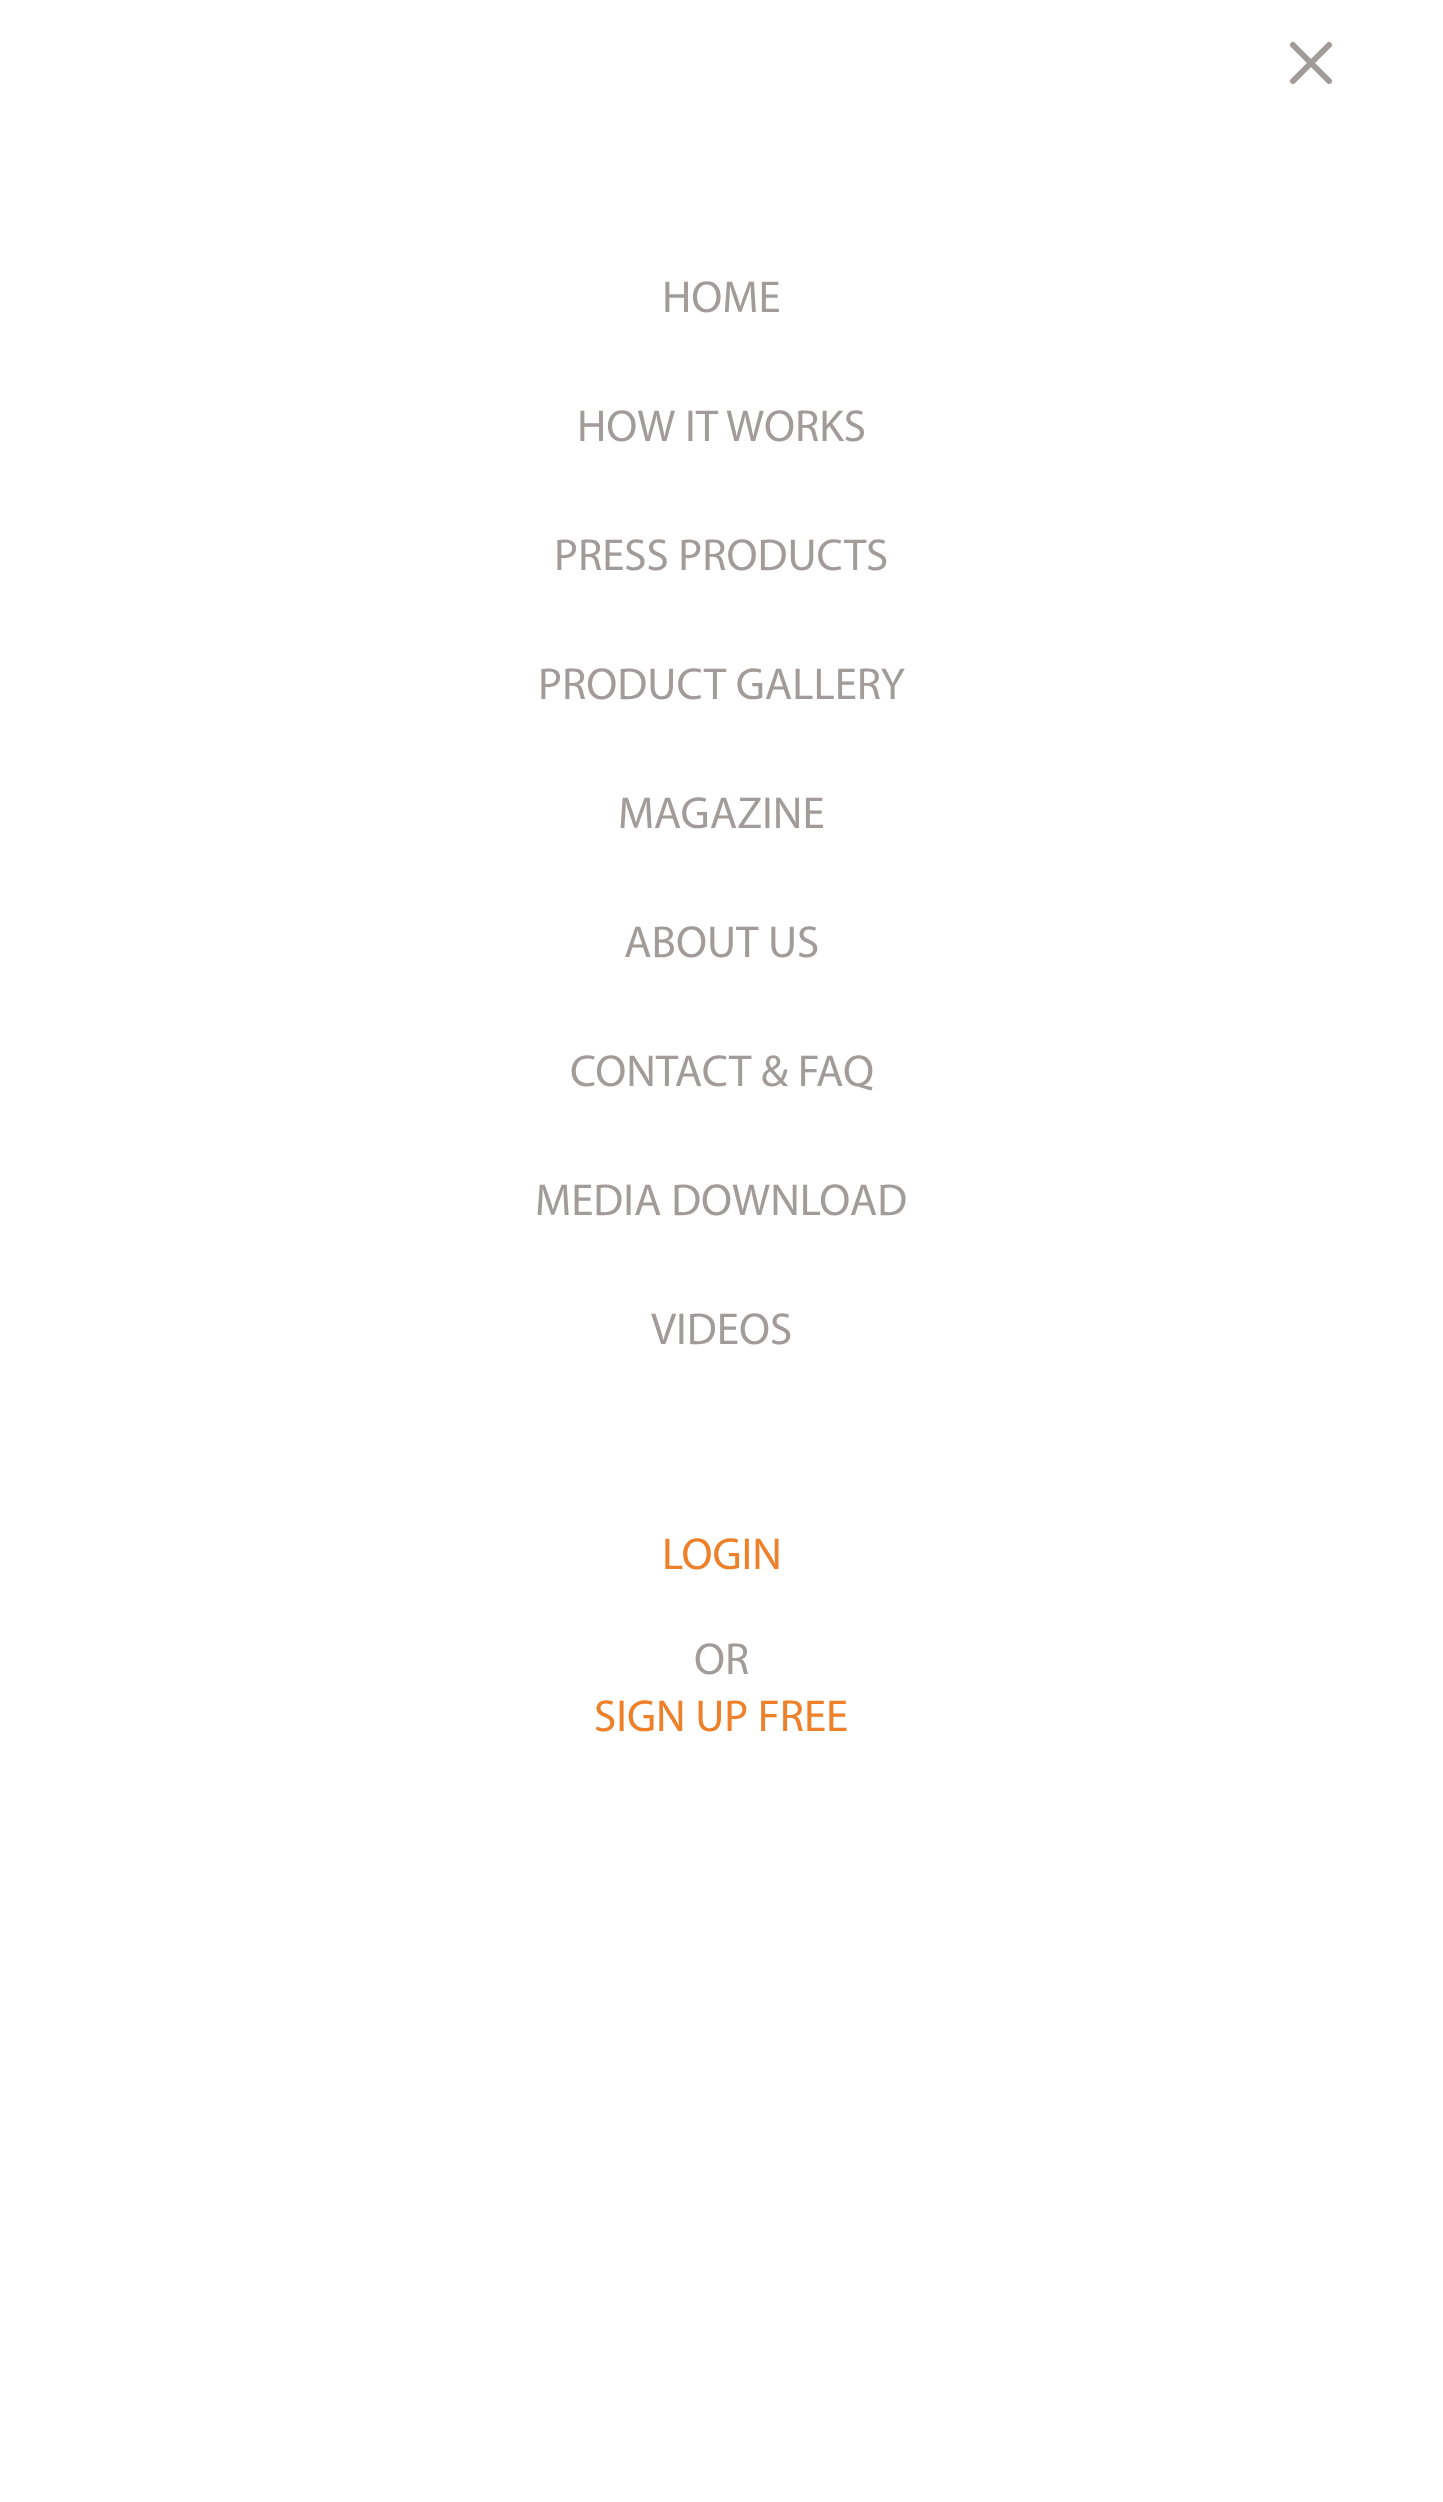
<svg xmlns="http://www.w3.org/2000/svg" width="1443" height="2502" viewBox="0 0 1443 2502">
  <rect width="100%" height="100%" fill="#ffffff"/>
  <path d="M1329 45L1293 81M1293 45L1329 81" fill="none" stroke="#a19c99" stroke-width="6" stroke-linecap="round" stroke-linejoin="round"/>
  <text x="662" y="312" font-family="Myriad" font-size="45" fill="#a19c99">HOME</text>
  <text x="577" y="441" font-family="Myriad" font-size="45" fill="#a19c99">HOW IT WORKS</text>
  <text x="554" y="570" font-family="Myriad" font-size="45" fill="#a19c99">PRESS PRODUCTS</text>
  <text x="538" y="699" font-family="Myriad" font-size="45" fill="#a19c99">PRODUCT GALLERY</text>
  <text x="618" y="828" font-family="Myriad" font-size="45" fill="#a19c99">MAGAZINE</text>
  <text x="624" y="957" font-family="Myriad" font-size="45" fill="#a19c99">ABOUT US</text>
  <text x="570" y="1086" font-family="Myriad" font-size="45" fill="#a19c99">CONTACT &amp; FAQ</text>
  <text x="535" y="1215" font-family="Myriad" font-size="45" fill="#a19c99">MEDIA DOWNLOAD</text>
  <text x="651" y="1344" font-family="Myriad" font-size="45" fill="#a19c99">VIDEOS</text>
  <text x="662" y="1569" font-family="Myriad" font-size="45" fill="#ee802a">LOGIN</text>
  <text x="694" y="1674" font-family="Myriad" font-size="45" fill="#a19c99">OR</text>
  <text x="594" y="1731" font-family="Myriad" font-size="45" fill="#ee802a">SIGN UP FREE</text>
</svg>
